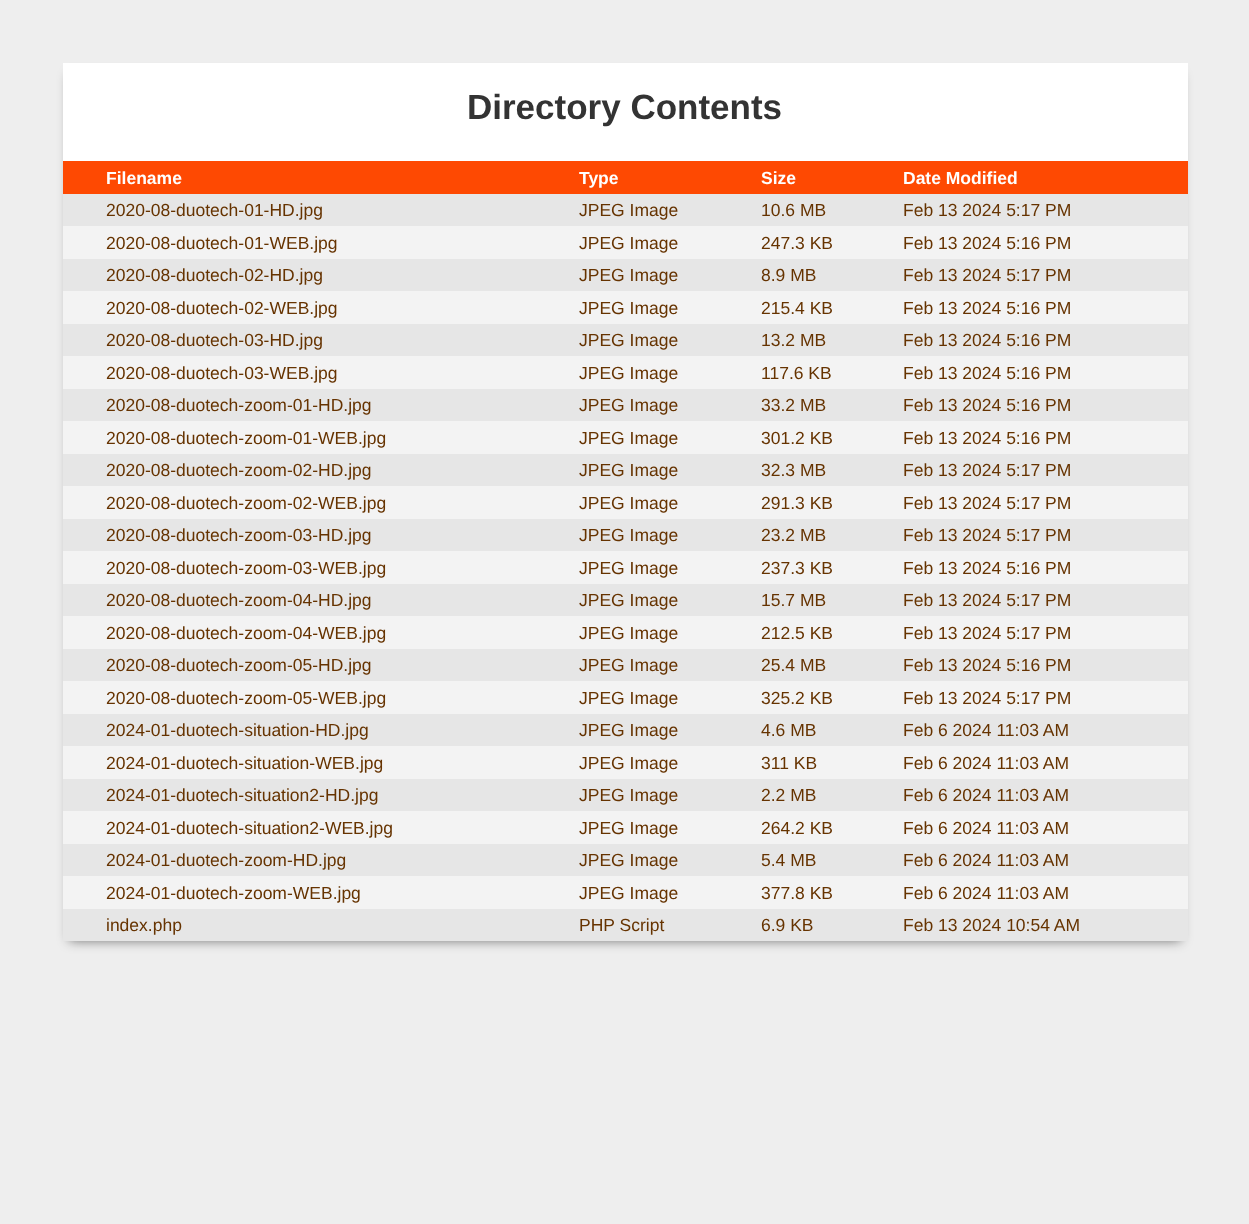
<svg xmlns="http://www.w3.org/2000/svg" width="1249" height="1224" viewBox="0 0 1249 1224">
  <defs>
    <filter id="blur1" x="-50%" y="-200%" width="200%" height="500%"><feGaussianBlur stdDeviation="6"/></filter>
  </defs>
  <rect width="100%" height="100%" fill="#eeeeee"/>
  <rect x="69" y="75" width="1112" height="866" fill="#000000" fill-opacity="0.5" filter="url(#blur1)"/>
  <rect x="63" y="63" width="1125" height="98" fill="#ffffff"/>
  <text x="467" y="119" font-family="Liberation Sans" font-size="35" font-weight="bold" fill="#333333">Directory Contents</text>
  <rect x="63" y="226" width="1125" height="683" fill="#f3f3f3"/>
  <rect x="63" y="161" width="1125" height="33" fill="#fe4902"/>
  <text x="106" y="184" font-family="Liberation Sans" font-size="17.5" font-weight="bold" fill="#ffffff">Filename</text>
  <text x="579" y="184" font-family="Liberation Sans" font-size="17.5" font-weight="bold" fill="#ffffff">Type</text>
  <text x="761" y="184" font-family="Liberation Sans" font-size="17.5" font-weight="bold" fill="#ffffff">Size</text>
  <text x="903" y="184" font-family="Liberation Sans" font-size="17.5" font-weight="bold" fill="#ffffff">Date Modified</text>
  <rect x="63" y="194" width="1125" height="32" fill="#e6e6e6"/>
  <text x="106" y="216" font-family="Liberation Sans" font-size="17.5" fill="#663300">2020-08-duotech-01-HD.jpg</text>
  <text x="579" y="216" font-family="Liberation Sans" font-size="17.5" fill="#663300">JPEG Image</text>
  <text x="761" y="216" font-family="Liberation Sans" font-size="17.5" fill="#663300">10.6 MB</text>
  <text x="903" y="216" font-family="Liberation Sans" font-size="17.5" fill="#663300">Feb 13 2024 5:17 PM</text>
  <text x="106" y="249" font-family="Liberation Sans" font-size="17.5" fill="#663300">2020-08-duotech-01-WEB.jpg</text>
  <text x="579" y="249" font-family="Liberation Sans" font-size="17.5" fill="#663300">JPEG Image</text>
  <text x="761" y="249" font-family="Liberation Sans" font-size="17.5" fill="#663300">247.3 KB</text>
  <text x="903" y="249" font-family="Liberation Sans" font-size="17.5" fill="#663300">Feb 13 2024 5:16 PM</text>
  <rect x="63" y="259" width="1125" height="32" fill="#e6e6e6"/>
  <text x="106" y="281" font-family="Liberation Sans" font-size="17.5" fill="#663300">2020-08-duotech-02-HD.jpg</text>
  <text x="579" y="281" font-family="Liberation Sans" font-size="17.5" fill="#663300">JPEG Image</text>
  <text x="761" y="281" font-family="Liberation Sans" font-size="17.5" fill="#663300">8.9 MB</text>
  <text x="903" y="281" font-family="Liberation Sans" font-size="17.5" fill="#663300">Feb 13 2024 5:17 PM</text>
  <text x="106" y="314" font-family="Liberation Sans" font-size="17.5" fill="#663300">2020-08-duotech-02-WEB.jpg</text>
  <text x="579" y="314" font-family="Liberation Sans" font-size="17.5" fill="#663300">JPEG Image</text>
  <text x="761" y="314" font-family="Liberation Sans" font-size="17.5" fill="#663300">215.4 KB</text>
  <text x="903" y="314" font-family="Liberation Sans" font-size="17.5" fill="#663300">Feb 13 2024 5:16 PM</text>
  <rect x="63" y="324" width="1125" height="32" fill="#e6e6e6"/>
  <text x="106" y="346" font-family="Liberation Sans" font-size="17.5" fill="#663300">2020-08-duotech-03-HD.jpg</text>
  <text x="579" y="346" font-family="Liberation Sans" font-size="17.5" fill="#663300">JPEG Image</text>
  <text x="761" y="346" font-family="Liberation Sans" font-size="17.5" fill="#663300">13.2 MB</text>
  <text x="903" y="346" font-family="Liberation Sans" font-size="17.5" fill="#663300">Feb 13 2024 5:16 PM</text>
  <text x="106" y="379" font-family="Liberation Sans" font-size="17.5" fill="#663300">2020-08-duotech-03-WEB.jpg</text>
  <text x="579" y="379" font-family="Liberation Sans" font-size="17.5" fill="#663300">JPEG Image</text>
  <text x="761" y="379" font-family="Liberation Sans" font-size="17.5" fill="#663300">117.6 KB</text>
  <text x="903" y="379" font-family="Liberation Sans" font-size="17.5" fill="#663300">Feb 13 2024 5:16 PM</text>
  <rect x="63" y="389" width="1125" height="32" fill="#e6e6e6"/>
  <text x="106" y="411" font-family="Liberation Sans" font-size="17.5" fill="#663300">2020-08-duotech-zoom-01-HD.jpg</text>
  <text x="579" y="411" font-family="Liberation Sans" font-size="17.5" fill="#663300">JPEG Image</text>
  <text x="761" y="411" font-family="Liberation Sans" font-size="17.5" fill="#663300">33.2 MB</text>
  <text x="903" y="411" font-family="Liberation Sans" font-size="17.5" fill="#663300">Feb 13 2024 5:16 PM</text>
  <text x="106" y="444" font-family="Liberation Sans" font-size="17.5" fill="#663300">2020-08-duotech-zoom-01-WEB.jpg</text>
  <text x="579" y="444" font-family="Liberation Sans" font-size="17.5" fill="#663300">JPEG Image</text>
  <text x="761" y="444" font-family="Liberation Sans" font-size="17.5" fill="#663300">301.2 KB</text>
  <text x="903" y="444" font-family="Liberation Sans" font-size="17.5" fill="#663300">Feb 13 2024 5:16 PM</text>
  <rect x="63" y="454" width="1125" height="32" fill="#e6e6e6"/>
  <text x="106" y="476" font-family="Liberation Sans" font-size="17.5" fill="#663300">2020-08-duotech-zoom-02-HD.jpg</text>
  <text x="579" y="476" font-family="Liberation Sans" font-size="17.5" fill="#663300">JPEG Image</text>
  <text x="761" y="476" font-family="Liberation Sans" font-size="17.5" fill="#663300">32.3 MB</text>
  <text x="903" y="476" font-family="Liberation Sans" font-size="17.5" fill="#663300">Feb 13 2024 5:17 PM</text>
  <text x="106" y="509" font-family="Liberation Sans" font-size="17.5" fill="#663300">2020-08-duotech-zoom-02-WEB.jpg</text>
  <text x="579" y="509" font-family="Liberation Sans" font-size="17.5" fill="#663300">JPEG Image</text>
  <text x="761" y="509" font-family="Liberation Sans" font-size="17.5" fill="#663300">291.3 KB</text>
  <text x="903" y="509" font-family="Liberation Sans" font-size="17.5" fill="#663300">Feb 13 2024 5:17 PM</text>
  <rect x="63" y="519" width="1125" height="32" fill="#e6e6e6"/>
  <text x="106" y="541" font-family="Liberation Sans" font-size="17.5" fill="#663300">2020-08-duotech-zoom-03-HD.jpg</text>
  <text x="579" y="541" font-family="Liberation Sans" font-size="17.5" fill="#663300">JPEG Image</text>
  <text x="761" y="541" font-family="Liberation Sans" font-size="17.5" fill="#663300">23.2 MB</text>
  <text x="903" y="541" font-family="Liberation Sans" font-size="17.5" fill="#663300">Feb 13 2024 5:17 PM</text>
  <text x="106" y="574" font-family="Liberation Sans" font-size="17.5" fill="#663300">2020-08-duotech-zoom-03-WEB.jpg</text>
  <text x="579" y="574" font-family="Liberation Sans" font-size="17.5" fill="#663300">JPEG Image</text>
  <text x="761" y="574" font-family="Liberation Sans" font-size="17.5" fill="#663300">237.3 KB</text>
  <text x="903" y="574" font-family="Liberation Sans" font-size="17.5" fill="#663300">Feb 13 2024 5:16 PM</text>
  <rect x="63" y="584" width="1125" height="32" fill="#e6e6e6"/>
  <text x="106" y="606" font-family="Liberation Sans" font-size="17.5" fill="#663300">2020-08-duotech-zoom-04-HD.jpg</text>
  <text x="579" y="606" font-family="Liberation Sans" font-size="17.5" fill="#663300">JPEG Image</text>
  <text x="761" y="606" font-family="Liberation Sans" font-size="17.5" fill="#663300">15.7 MB</text>
  <text x="903" y="606" font-family="Liberation Sans" font-size="17.5" fill="#663300">Feb 13 2024 5:17 PM</text>
  <text x="106" y="639" font-family="Liberation Sans" font-size="17.5" fill="#663300">2020-08-duotech-zoom-04-WEB.jpg</text>
  <text x="579" y="639" font-family="Liberation Sans" font-size="17.5" fill="#663300">JPEG Image</text>
  <text x="761" y="639" font-family="Liberation Sans" font-size="17.5" fill="#663300">212.5 KB</text>
  <text x="903" y="639" font-family="Liberation Sans" font-size="17.5" fill="#663300">Feb 13 2024 5:17 PM</text>
  <rect x="63" y="649" width="1125" height="32" fill="#e6e6e6"/>
  <text x="106" y="671" font-family="Liberation Sans" font-size="17.5" fill="#663300">2020-08-duotech-zoom-05-HD.jpg</text>
  <text x="579" y="671" font-family="Liberation Sans" font-size="17.5" fill="#663300">JPEG Image</text>
  <text x="761" y="671" font-family="Liberation Sans" font-size="17.5" fill="#663300">25.4 MB</text>
  <text x="903" y="671" font-family="Liberation Sans" font-size="17.5" fill="#663300">Feb 13 2024 5:16 PM</text>
  <text x="106" y="704" font-family="Liberation Sans" font-size="17.5" fill="#663300">2020-08-duotech-zoom-05-WEB.jpg</text>
  <text x="579" y="704" font-family="Liberation Sans" font-size="17.5" fill="#663300">JPEG Image</text>
  <text x="761" y="704" font-family="Liberation Sans" font-size="17.5" fill="#663300">325.2 KB</text>
  <text x="903" y="704" font-family="Liberation Sans" font-size="17.5" fill="#663300">Feb 13 2024 5:17 PM</text>
  <rect x="63" y="714" width="1125" height="32" fill="#e6e6e6"/>
  <text x="106" y="736" font-family="Liberation Sans" font-size="17.5" fill="#663300">2024-01-duotech-situation-HD.jpg</text>
  <text x="579" y="736" font-family="Liberation Sans" font-size="17.5" fill="#663300">JPEG Image</text>
  <text x="761" y="736" font-family="Liberation Sans" font-size="17.5" fill="#663300">4.6 MB</text>
  <text x="903" y="736" font-family="Liberation Sans" font-size="17.5" fill="#663300">Feb 6 2024 11:03 AM</text>
  <text x="106" y="769" font-family="Liberation Sans" font-size="17.5" fill="#663300">2024-01-duotech-situation-WEB.jpg</text>
  <text x="579" y="769" font-family="Liberation Sans" font-size="17.5" fill="#663300">JPEG Image</text>
  <text x="761" y="769" font-family="Liberation Sans" font-size="17.5" fill="#663300">311 KB</text>
  <text x="903" y="769" font-family="Liberation Sans" font-size="17.5" fill="#663300">Feb 6 2024 11:03 AM</text>
  <rect x="63" y="779" width="1125" height="32" fill="#e6e6e6"/>
  <text x="106" y="801" font-family="Liberation Sans" font-size="17.5" fill="#663300">2024-01-duotech-situation2-HD.jpg</text>
  <text x="579" y="801" font-family="Liberation Sans" font-size="17.5" fill="#663300">JPEG Image</text>
  <text x="761" y="801" font-family="Liberation Sans" font-size="17.5" fill="#663300">2.2 MB</text>
  <text x="903" y="801" font-family="Liberation Sans" font-size="17.5" fill="#663300">Feb 6 2024 11:03 AM</text>
  <text x="106" y="834" font-family="Liberation Sans" font-size="17.5" fill="#663300">2024-01-duotech-situation2-WEB.jpg</text>
  <text x="579" y="834" font-family="Liberation Sans" font-size="17.5" fill="#663300">JPEG Image</text>
  <text x="761" y="834" font-family="Liberation Sans" font-size="17.5" fill="#663300">264.2 KB</text>
  <text x="903" y="834" font-family="Liberation Sans" font-size="17.5" fill="#663300">Feb 6 2024 11:03 AM</text>
  <rect x="63" y="844" width="1125" height="32" fill="#e6e6e6"/>
  <text x="106" y="866" font-family="Liberation Sans" font-size="17.5" fill="#663300">2024-01-duotech-zoom-HD.jpg</text>
  <text x="579" y="866" font-family="Liberation Sans" font-size="17.5" fill="#663300">JPEG Image</text>
  <text x="761" y="866" font-family="Liberation Sans" font-size="17.5" fill="#663300">5.4 MB</text>
  <text x="903" y="866" font-family="Liberation Sans" font-size="17.5" fill="#663300">Feb 6 2024 11:03 AM</text>
  <text x="106" y="899" font-family="Liberation Sans" font-size="17.5" fill="#663300">2024-01-duotech-zoom-WEB.jpg</text>
  <text x="579" y="899" font-family="Liberation Sans" font-size="17.5" fill="#663300">JPEG Image</text>
  <text x="761" y="899" font-family="Liberation Sans" font-size="17.5" fill="#663300">377.8 KB</text>
  <text x="903" y="899" font-family="Liberation Sans" font-size="17.5" fill="#663300">Feb 6 2024 11:03 AM</text>
  <rect x="63" y="909" width="1125" height="32" fill="#e6e6e6"/>
  <text x="106" y="931" font-family="Liberation Sans" font-size="17.5" fill="#663300">index.php</text>
  <text x="579" y="931" font-family="Liberation Sans" font-size="17.5" fill="#663300">PHP Script</text>
  <text x="761" y="931" font-family="Liberation Sans" font-size="17.5" fill="#663300">6.9 KB</text>
  <text x="903" y="931" font-family="Liberation Sans" font-size="17.5" fill="#663300">Feb 13 2024 10:54 AM</text>
</svg>
